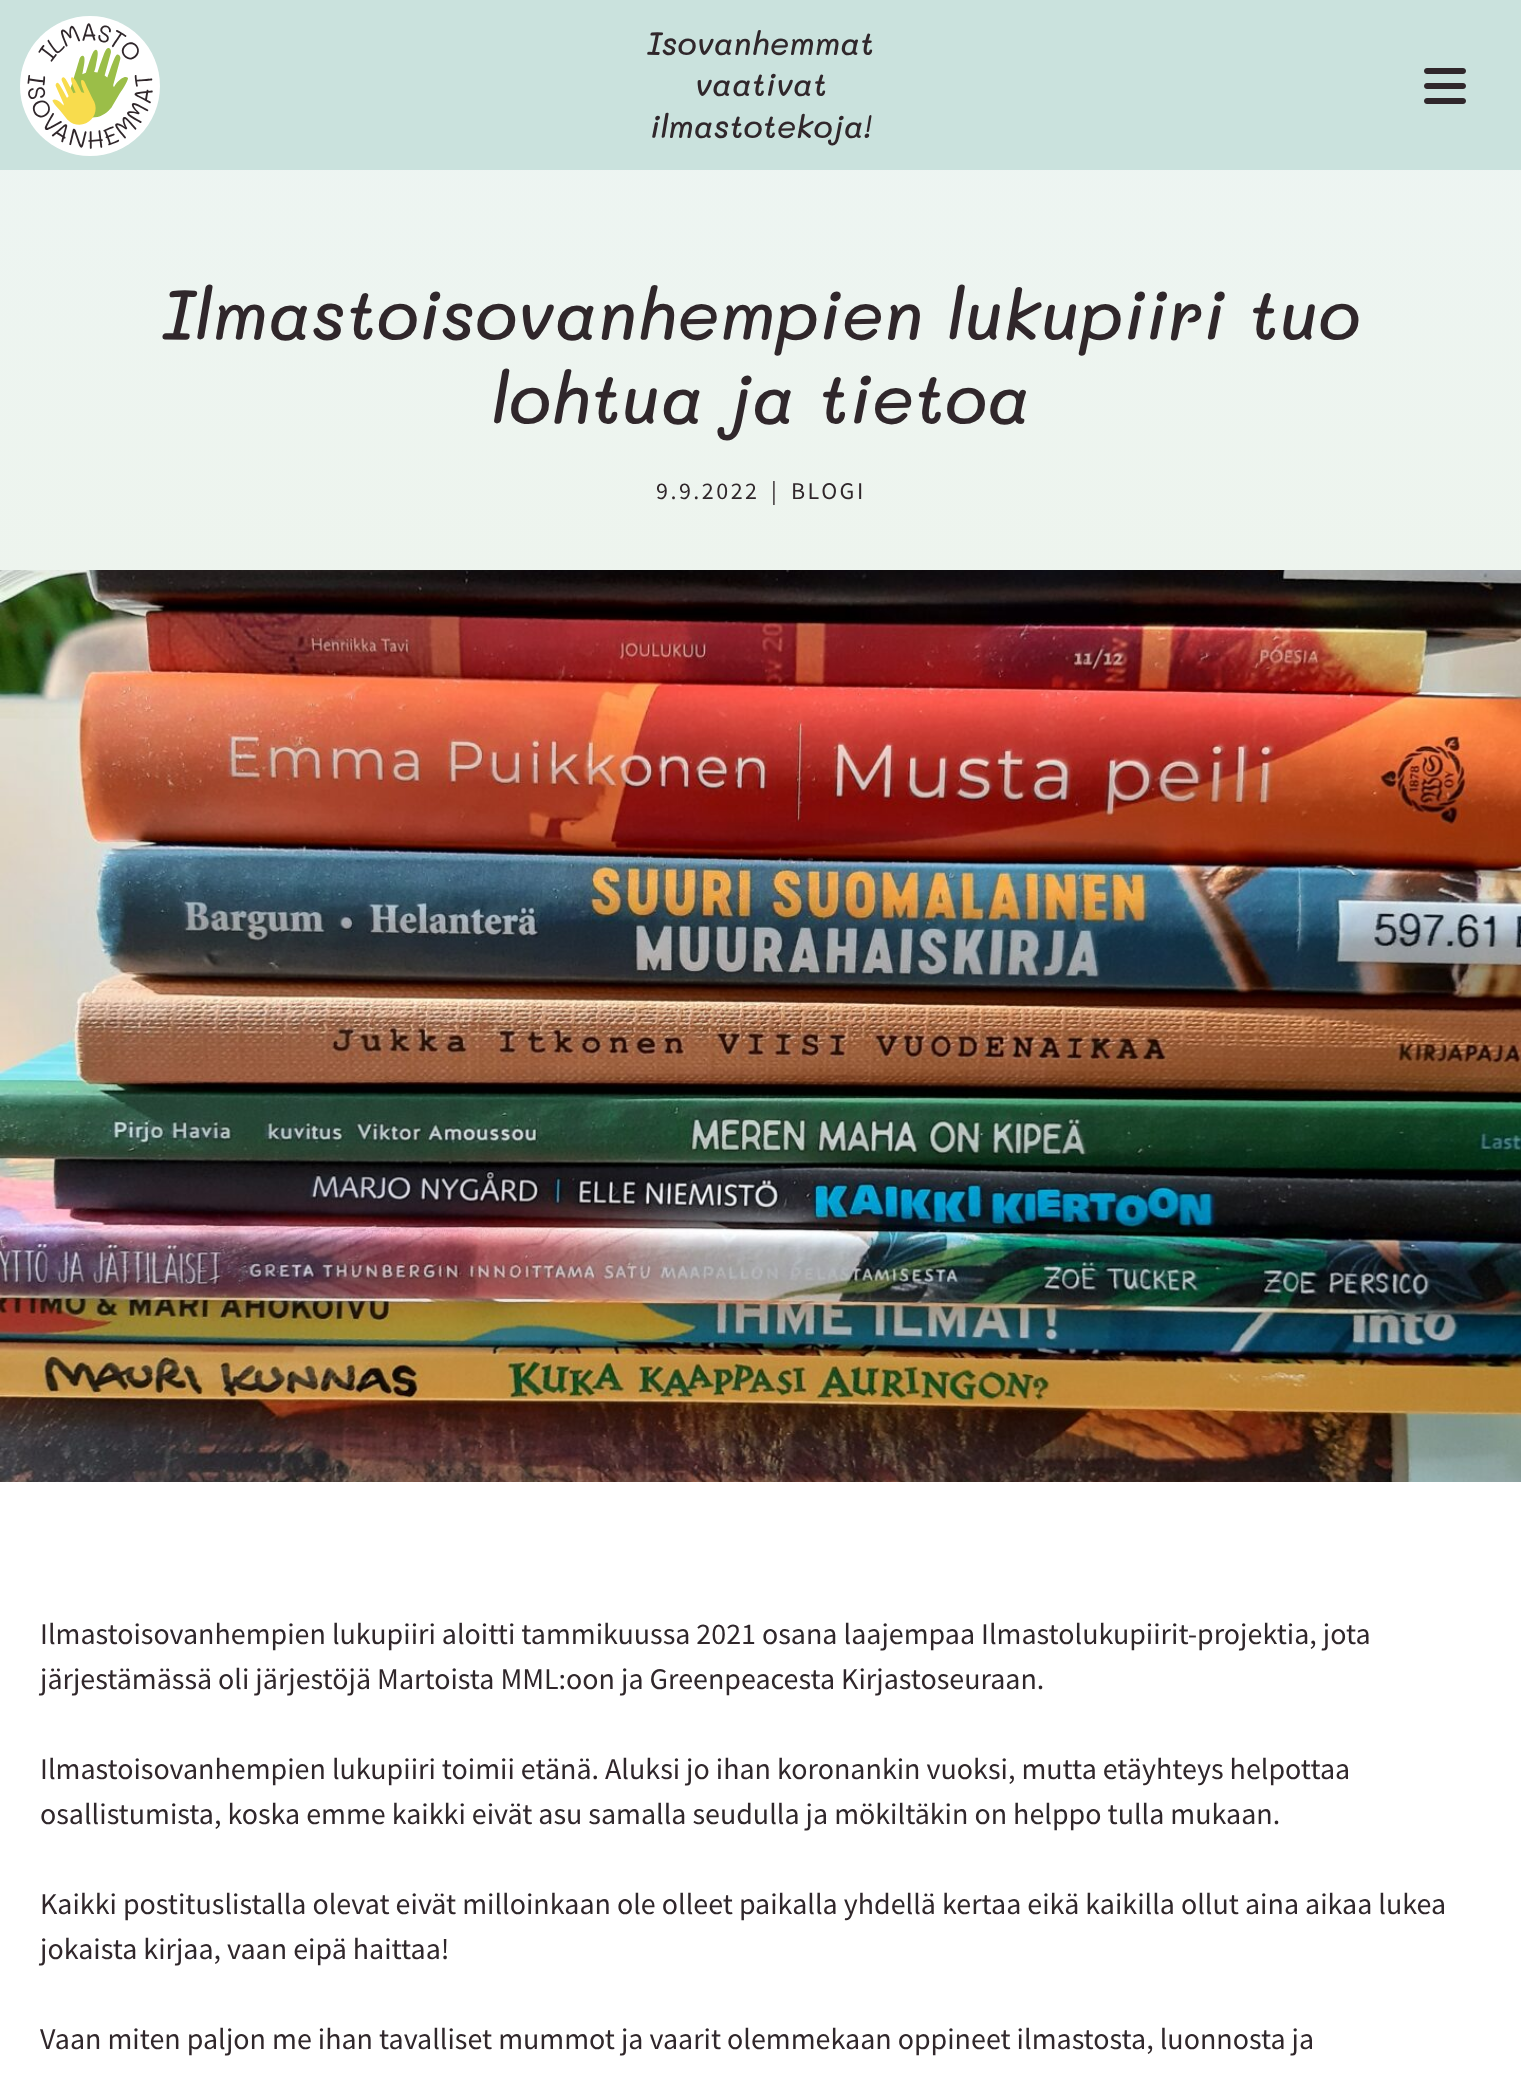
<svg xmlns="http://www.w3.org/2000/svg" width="1521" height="2082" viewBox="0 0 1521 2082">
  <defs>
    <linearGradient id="g1" gradientUnits="userSpaceOnUse" x1="761" y1="0" x2="761" y2="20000"><stop offset="0" stop-color="#edf5f3"/><stop offset="0.2" stop-color="#eff0cf"/><stop offset="1" stop-color="#eff0cf"/></linearGradient>
  </defs>
  <rect width="100%" height="100%" fill="#ffffff"/>
  <rect x="0" y="170" width="1521" height="400" fill="url(#g1)"/>
  <rect x="0" y="0" width="1521" height="170" fill="#cae2dd"/>
  <image x="20" y="16" width="140" height="140" href="img1.png"/>
  <text x="647" y="55" font-family="Mali" font-size="32" font-weight="500" font-style="italic" fill="#30272b">Isovanhemmat</text>
  <text x="695" y="96" font-family="Mali" font-size="32" font-weight="500" font-style="italic" fill="#30272b">vaativat</text>
  <text x="650" y="138" font-family="Mali" font-size="32" font-weight="500" font-style="italic" fill="#30272b">ilmastotekoja!</text>
  <image x="1424" y="68" width="42" height="36" href="img2.png"/>
  <text x="162" y="340" font-family="Mali" font-size="70" font-weight="500" font-style="italic" fill="#30272b">Ilmastoisovanhempien lukupiiri tuo</text>
  <text x="491" y="424" font-family="Mali" font-size="70" font-weight="500" font-style="italic" fill="#30272b">lohtua ja tietoa</text>
  <text x="656" y="499" font-family="Source Sans Pro" font-size="24" letter-spacing="2.5" fill="#30272b">9.9.2022</text>
  <text x="771" y="499" font-family="Source Sans Pro" font-size="24" letter-spacing="2.5" fill="#30272b">|</text>
  <text x="791" y="499" font-family="Source Sans Pro" font-size="24" letter-spacing="2.5" fill="#30272b">BLOGI</text>
  <image x="0" y="570" width="1521" height="912" href="img3.png"/>
  <text x="40" y="1644" font-family="Source Sans Pro" font-size="30" fill="#30272b">Ilmastoisovanhempien lukupiiri aloitti tammikuussa 2021 osana laajempaa Ilmastolukupiirit-projektia, jota</text>
  <text x="40" y="1689" font-family="Source Sans Pro" font-size="30" fill="#30272b">järjestämässä oli järjestöjä Martoista MML:oon ja Greenpeacesta Kirjastoseuraan.</text>
  <text x="40" y="1779" font-family="Source Sans Pro" font-size="30" fill="#30272b">Ilmastoisovanhempien lukupiiri toimii etänä. Aluksi jo ihan koronankin vuoksi, mutta etäyhteys helpottaa</text>
  <text x="40" y="1824" font-family="Source Sans Pro" font-size="30" fill="#30272b">osallistumista, koska emme kaikki eivät asu samalla seudulla ja mökiltäkin on helppo tulla mukaan.</text>
  <text x="40" y="1914" font-family="Source Sans Pro" font-size="30" fill="#30272b">Kaikki postituslistalla olevat eivät milloinkaan ole olleet paikalla yhdellä kertaa eikä kaikilla ollut aina aikaa lukea</text>
  <text x="40" y="1959" font-family="Source Sans Pro" font-size="30" fill="#30272b">jokaista kirjaa, vaan eipä haittaa!</text>
  <text x="40" y="2049" font-family="Source Sans Pro" font-size="30" fill="#30272b">Vaan miten paljon me ihan tavalliset mummot ja vaarit olemmekaan oppineet ilmastosta, luonnosta ja</text>
</svg>
